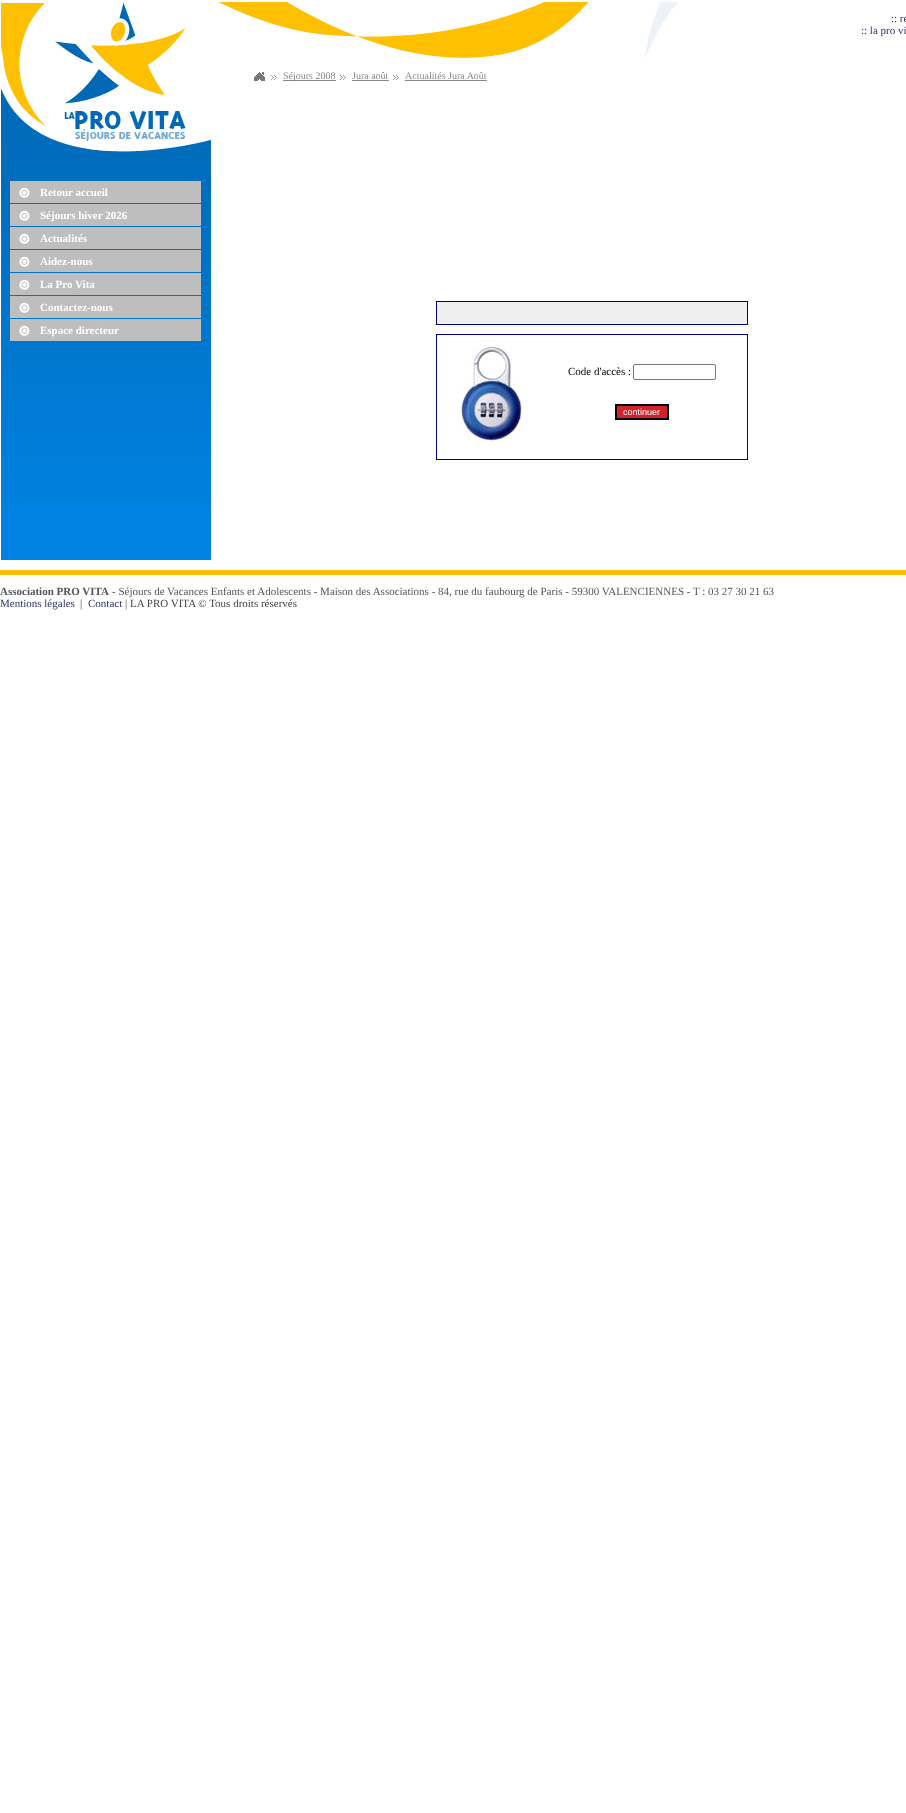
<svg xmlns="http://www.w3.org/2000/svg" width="906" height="1813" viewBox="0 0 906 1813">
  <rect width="100%" height="100%" fill="#ffffff"/>
  <rect x="1" y="503" width="210" height="57" fill="#0082e2"/>
  <image x="1" y="0" width="677" height="60" href="img1.png"/>
  <text x="891" y="22" font-family="Liberation Serif" font-size="11" fill="#31336e">:: re</text>
  <text x="861" y="34" font-family="Liberation Serif" font-size="11" fill="#31336e">:: la pro vi</text>
  <image x="1" y="60" width="210" height="443" href="img2.png"/>
  <rect x="10" y="181" width="191" height="22" fill="#bebebe"/>
  <image x="19" y="187" width="11" height="11" href="img3.png"/>
  <text x="40" y="196" font-family="Liberation Serif" font-size="11" font-weight="bold" fill="#ffffff">Retour accueil</text>
  <rect x="10" y="204" width="191" height="22" fill="#bebebe"/>
  <image x="19" y="210" width="11" height="11" href="img3.png"/>
  <text x="40" y="219" font-family="Liberation Serif" font-size="11" font-weight="bold" fill="#ffffff">Séjours hiver 2026</text>
  <rect x="10" y="227" width="191" height="22" fill="#bebebe"/>
  <image x="19" y="233" width="11" height="11" href="img3.png"/>
  <text x="40" y="242" font-family="Liberation Serif" font-size="11" font-weight="bold" fill="#ffffff">Actualités</text>
  <rect x="10" y="250" width="191" height="22" fill="#bebebe"/>
  <image x="19" y="256" width="11" height="11" href="img3.png"/>
  <text x="40" y="265" font-family="Liberation Serif" font-size="11" font-weight="bold" fill="#ffffff">Aidez-nous</text>
  <rect x="10" y="273" width="191" height="22" fill="#bebebe"/>
  <image x="19" y="279" width="11" height="11" href="img3.png"/>
  <text x="40" y="288" font-family="Liberation Serif" font-size="11" font-weight="bold" fill="#ffffff">La Pro Vita</text>
  <rect x="10" y="296" width="191" height="22" fill="#bebebe"/>
  <image x="19" y="302" width="11" height="11" href="img3.png"/>
  <text x="40" y="311" font-family="Liberation Serif" font-size="11" font-weight="bold" fill="#ffffff">Contactez-nous</text>
  <rect x="10" y="319" width="191" height="22" fill="#bebebe"/>
  <image x="19" y="325" width="11" height="11" href="img3.png"/>
  <text x="40" y="334" font-family="Liberation Serif" font-size="11" font-weight="bold" fill="#ffffff">Espace directeur</text>
  <image x="271" y="75" width="6" height="5" href="img4.png"/>
  <image x="254" y="72" width="11" height="9" href="img5.png"/>
  <image x="340" y="75" width="6" height="5" href="img4.png"/>
  <rect x="283" y="80" width="53" height="1" fill="#888888"/>
  <text x="283" y="79" font-family="Liberation Serif" font-size="10" fill="#888888">Séjours 2008</text>
  <image x="393" y="75" width="6" height="5" href="img4.png"/>
  <text x="352" y="79" font-family="Liberation Serif" font-size="10" fill="#888888">Jura août</text>
  <rect x="352" y="80" width="37" height="1" fill="#888888"/>
  <text x="405" y="79" font-family="Liberation Serif" font-size="10" fill="#888888">Actualités Jura Août</text>
  <rect x="405" y="80" width="82" height="1" fill="#888888"/>
  <rect x="436.5" y="301.5" width="311" height="23" fill="#efefef" stroke="#000080"/>
  <rect x="436.5" y="334.5" width="311" height="125" fill="none" stroke="#000080"/>
  <image x="458" y="346" width="64" height="98" href="img6.png"/>
  <text x="568" y="375" font-family="Liberation Serif" font-size="11" fill="#000000">Code d'accès :</text>
  <rect x="633.5" y="364.5" width="82" height="15" rx="1.5" fill="none" stroke="#767676"/>
  <rect x="616" y="405" width="52" height="14" fill="#d2232a" stroke="#000000" stroke-width="2"/>
  <text x="623" y="415" font-family="Liberation Sans" font-size="9" fill="#ffffff">continuer</text>
  <rect x="0" y="570" width="906" height="5" fill="#ffc002"/>
  <text x="0" y="595" font-family="Liberation Serif" font-size="11" font-weight="bold" fill="#555555">Association PRO VITA</text>
  <text x="112" y="595" font-family="Liberation Serif" font-size="11" fill="#555555">- Séjours de Vacances Enfants et Adolescents - Maison des Associations - 84, rue du faubourg de Paris - 59300 VALENCIENNES - T : 03 27 30 21 63</text>
  <text x="0" y="607" font-family="Liberation Serif" font-size="11" fill="#31336e">Mentions légales</text>
  <text x="80" y="607" font-family="Liberation Serif" font-size="11" fill="#444444">|</text>
  <text x="88" y="607" font-family="Liberation Serif" font-size="11" fill="#31336e">Contact</text>
  <text x="125" y="607" font-family="Liberation Serif" font-size="11" fill="#444444">| LA PRO VITA © Tous droits réservés</text>
</svg>
